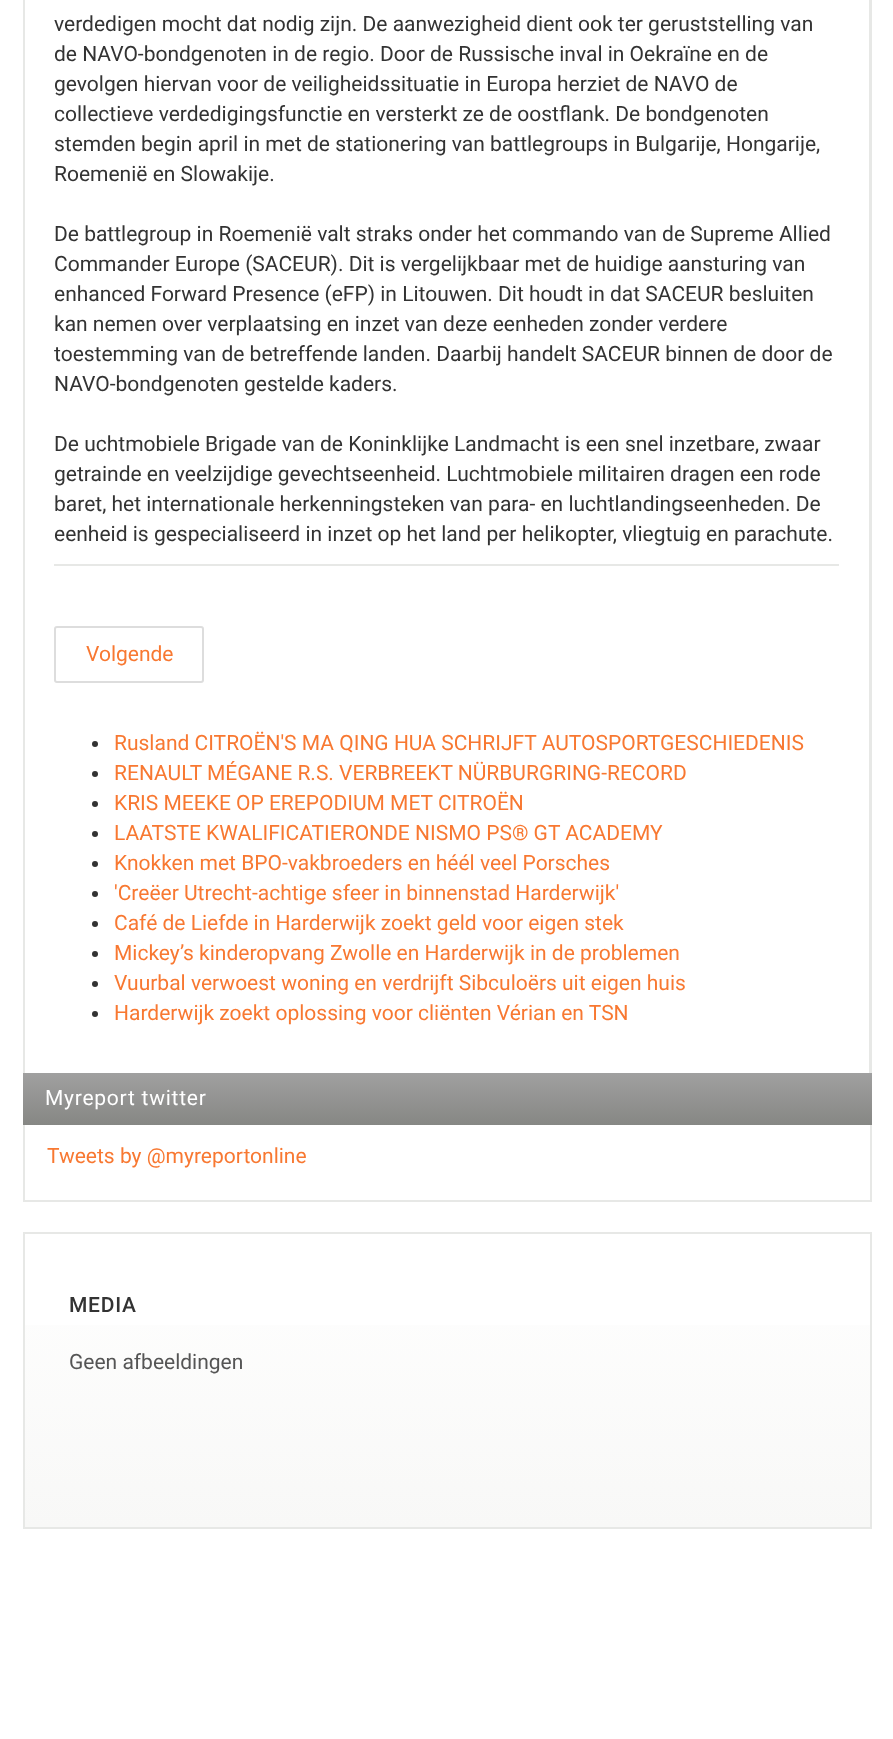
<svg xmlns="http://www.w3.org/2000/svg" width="893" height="1739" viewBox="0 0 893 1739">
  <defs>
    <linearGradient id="g1" gradientUnits="userSpaceOnUse" x1="447" y1="1073" x2="447" y2="1125"><stop offset="0" stop-color="#a0a0a0"/><stop offset="1" stop-color="#868784"/></linearGradient>
    <linearGradient id="g2" gradientUnits="userSpaceOnUse" x1="447" y1="1233" x2="447" y2="1527"><stop offset="0" stop-color="#ffffff"/><stop offset="1" stop-color="#f8f8f7"/></linearGradient>
  </defs>
  <rect width="100%" height="100%" fill="#ffffff"/>
  <rect x="24" y="-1" width="847" height="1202" fill="none" stroke="#e7e8e6" stroke-width="2"/>
  <rect x="869" y="0" width="1" height="1073" fill="#e7e8e6"/>
  <text x="54" y="31" font-family="Roboto" font-size="21" fill="#333333">verdedigen mocht dat nodig zijn. De aanwezigheid dient ook ter geruststelling van</text>
  <text x="54" y="61" font-family="Roboto" font-size="21" fill="#333333">de NAVO-bondgenoten in de regio. Door de Russische inval in Oekraïne en de</text>
  <text x="54" y="91" font-family="Roboto" font-size="21" fill="#333333">gevolgen hiervan voor de veiligheidssituatie in Europa herziet de NAVO de</text>
  <text x="54" y="121" font-family="Roboto" font-size="21" fill="#333333">collectieve verdedigingsfunctie en versterkt ze de oostflank. De bondgenoten</text>
  <text x="54" y="151" font-family="Roboto" font-size="21" fill="#333333">stemden begin april in met de stationering van battlegroups in Bulgarije, Hongarije,</text>
  <text x="54" y="181" font-family="Roboto" font-size="21" fill="#333333">Roemenië en Slowakije.</text>
  <text x="54" y="241" font-family="Roboto" font-size="21" fill="#333333">De battlegroup in Roemenië valt straks onder het commando van de Supreme Allied</text>
  <text x="54" y="271" font-family="Roboto" font-size="21" fill="#333333">Commander Europe (SACEUR). Dit is vergelijkbaar met de huidige aansturing van</text>
  <text x="54" y="301" font-family="Roboto" font-size="21" fill="#333333">enhanced Forward Presence (eFP) in Litouwen. Dit houdt in dat SACEUR besluiten</text>
  <text x="54" y="331" font-family="Roboto" font-size="21" fill="#333333">kan nemen over verplaatsing en inzet van deze eenheden zonder verdere</text>
  <text x="54" y="361" font-family="Roboto" font-size="21" fill="#333333">toestemming van de betreffende landen. Daarbij handelt SACEUR binnen de door de</text>
  <text x="54" y="391" font-family="Roboto" font-size="21" fill="#333333">NAVO-bondgenoten gestelde kaders.</text>
  <text x="54" y="451" font-family="Roboto" font-size="21" fill="#333333">De uchtmobiele Brigade van de Koninklijke Landmacht is een snel inzetbare, zwaar</text>
  <text x="54" y="481" font-family="Roboto" font-size="21" fill="#333333">getrainde en veelzijdige gevechtseenheid. Luchtmobiele militairen dragen een rode</text>
  <text x="54" y="511" font-family="Roboto" font-size="21" fill="#333333">baret, het internationale herkenningsteken van para- en luchtlandingseenheden. De</text>
  <text x="54" y="541" font-family="Roboto" font-size="21" fill="#333333">eenheid is gespecialiseerd in inzet op het land per helikopter, vliegtuig en parachute.</text>
  <rect x="54" y="564" width="785" height="2" fill="#e7e8e6"/>
  <rect x="55" y="627" width="148" height="55" rx="2" fill="none" stroke="#dddddd" stroke-width="2"/>
  <text x="86" y="661" font-family="Roboto" font-size="21" fill="#f87831">Volgende</text>
  <circle cx="95" cy="744" r="3" fill="#333333"/>
  <text x="114" y="750" font-family="Roboto" font-size="21" fill="#f87831">Rusland CITROËN'S MA QING HUA SCHRIJFT AUTOSPORTGESCHIEDENIS</text>
  <circle cx="95" cy="774" r="3" fill="#333333"/>
  <text x="114" y="780" font-family="Roboto" font-size="21" fill="#f87831">RENAULT MÉGANE R.S. VERBREEKT NÜRBURGRING-RECORD</text>
  <circle cx="95" cy="804" r="3" fill="#333333"/>
  <text x="114" y="810" font-family="Roboto" font-size="21" fill="#f87831">KRIS MEEKE OP EREPODIUM MET CITROËN</text>
  <circle cx="95" cy="834" r="3" fill="#333333"/>
  <text x="114" y="840" font-family="Roboto" font-size="21" fill="#f87831">LAATSTE KWALIFICATIERONDE NISMO PS® GT ACADEMY</text>
  <circle cx="95" cy="864" r="3" fill="#333333"/>
  <text x="114" y="870" font-family="Roboto" font-size="21" fill="#f87831">Knokken met BPO-vakbroeders en héél veel Porsches</text>
  <circle cx="95" cy="894" r="3" fill="#333333"/>
  <text x="114" y="900" font-family="Roboto" font-size="21" fill="#f87831">'Creëer Utrecht-achtige sfeer in binnenstad Harderwijk'</text>
  <circle cx="95" cy="924" r="3" fill="#333333"/>
  <text x="114" y="930" font-family="Roboto" font-size="21" fill="#f87831">Café de Liefde in Harderwijk zoekt geld voor eigen stek</text>
  <circle cx="95" cy="954" r="3" fill="#333333"/>
  <text x="114" y="960" font-family="Roboto" font-size="21" fill="#f87831">Mickey’s kinderopvang Zwolle en Harderwijk in de problemen</text>
  <circle cx="95" cy="984" r="3" fill="#333333"/>
  <text x="114" y="990" font-family="Roboto" font-size="21" fill="#f87831">Vuurbal verwoest woning en verdrijft Sibculoërs uit eigen huis</text>
  <circle cx="95" cy="1014" r="3" fill="#333333"/>
  <text x="114" y="1020" font-family="Roboto" font-size="21" fill="#f87831">Harderwijk zoekt oplossing voor cliënten Vérian en TSN</text>
  <rect x="23" y="1073" width="849" height="52" fill="url(#g1)"/>
  <text x="45" y="1105" font-family="Roboto" font-size="21" letter-spacing="0.75" fill="#ffffff">Myreport twitter</text>
  <text x="47" y="1163" font-family="Roboto" font-size="21" fill="#f87831">Tweets by @myreportonline</text>
  <rect x="25" y="1325" width="845" height="202" fill="url(#g2)"/>
  <rect x="24" y="1233" width="847" height="295" fill="none" stroke="#e7e8e6" stroke-width="2"/>
  <text x="69" y="1312" font-family="Roboto" font-size="21" font-weight="500" letter-spacing="0.75" fill="#333333">MEDIA</text>
  <text x="69" y="1369" font-family="Roboto" font-size="21" fill="#555555">Geen afbeeldingen</text>
</svg>
